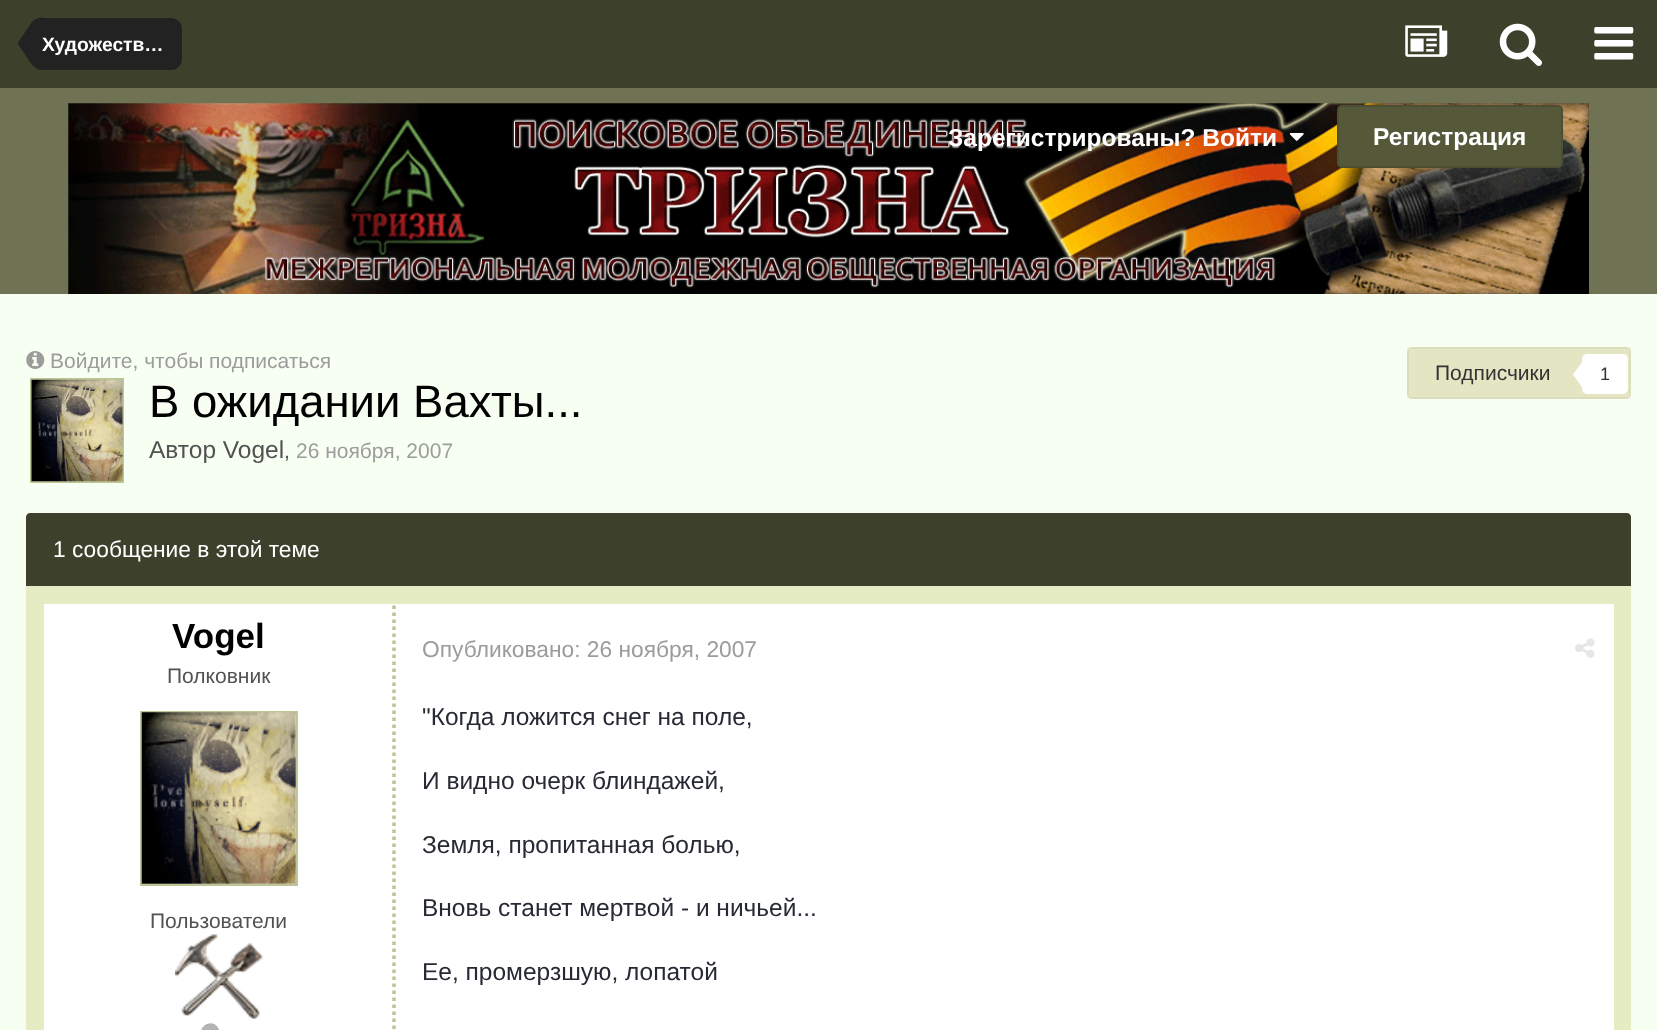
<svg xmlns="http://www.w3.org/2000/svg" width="1657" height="1030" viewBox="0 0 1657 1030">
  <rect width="100%" height="100%" fill="#3d402b"/>
  <path d="M42 18H171C177 18 182 23 182 29V59C182 65 177 70 171 70H42Z" fill="#222222"/>
  <path d="M18 44H42V70C35.5 70 31.5 64 28 59ZM42 17.5V44H18V42.5L30.5 24C32 22 31.5 22 33 21C35.5 19 39 17.5 42 17.5Z" fill="#222222"/>
  <text x="42" y="51" font-family="Liberation Sans" font-size="19.25" font-weight="bold" fill="#ffffff">Художеств…</text>
  <image x="1405" y="25" width="43" height="32" href="img1.png"/>
  <image x="1499" y="23" width="43" height="43" href="img2.png"/>
  <image x="1594" y="27" width="40" height="33" href="img3.png"/>
  <rect x="0" y="88" width="1657" height="206" fill="#6f7353"/>
  <image x="68" y="103" width="1521" height="191" href="img4.png"/>
  <text x="948" y="146" font-family="Liberation Sans" font-size="24.5" font-weight="bold" fill="#ffffff">Зарегистрированы? Войти</text>
  <image x="1289" y="133" width="15" height="8" href="img5.png"/>
  <rect x="1337" y="105" width="226" height="63" rx="5" fill="#55593a"/>
  <rect x="1338" y="106" width="224" height="61" rx="4" fill="none" stroke="#000000" stroke-opacity="0.1" stroke-width="2"/>
  <text x="1373" y="145" font-family="Liberation Sans" font-size="24.5" font-weight="bold" fill="#ffffff">Регистрация</text>
  <rect x="0" y="294" width="1657" height="736" fill="#f7fff2"/>
  <image x="26" y="351" width="19" height="18" href="img6.png"/>
  <text x="50" y="368" font-family="Liberation Sans" font-size="21" fill="#9c9c9c">Войдите, чтобы подписаться</text>
  <rect x="1407" y="347" width="224" height="52" rx="5" fill="#e3e5c3"/>
  <rect x="1408" y="348" width="222" height="50" fill="none" stroke="#000000" stroke-opacity="0.03" stroke-width="2"/>
  <text x="1435" y="380" font-family="Liberation Sans" font-size="21" fill="#333333">Подписчики</text>
  <rect x="1582" y="354" width="46" height="40" rx="5" fill="#ffffff"/>
  <path d="M1582 362V387L1573 374.5Z" fill="#ffffff"/>
  <text x="1600" y="380" font-family="Liberation Sans" font-size="18" fill="#333333">1</text>
  <rect x="31" y="379" width="92" height="103" fill="none" stroke="#bbc596" stroke-width="2"/>
  <image x="31" y="379" width="92" height="103" href="img7.png"/>
  <text x="149" y="417" font-family="Liberation Sans" font-size="45.5" fill="#000000">В ожидании Вахты...</text>
  <text x="149" y="458" font-family="Liberation Sans" font-size="24.5" fill="#525252">Автор Vogel</text>
  <text x="284" y="458" font-family="Liberation Sans" font-size="21" fill="#525252">,</text>
  <text x="296" y="458" font-family="Liberation Sans" font-size="21" fill="#9c9c9c">26 ноября, 2007</text>
  <path d="M30 513H1627C1629 513 1631 515 1631 517V586H26V517C26 515 28 513 30 513Z" fill="#3d402b"/>
  <text x="53" y="557" font-family="Liberation Sans" font-size="22.75" fill="#ffffff">1 сообщение в этой теме</text>
  <rect x="26" y="586" width="1605" height="444" fill="#e5ebc2"/>
  <rect x="44" y="604" width="1570" height="426" fill="#ffffff"/>
  <path d="M394 605.5V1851.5" fill="none" stroke="#bbc596" stroke-width="3.5" stroke-dasharray="3.5 3.5"/>
  <text x="172" y="648" font-family="Liberation Sans" font-size="35" font-weight="bold" fill="#000000">Vogel</text>
  <text x="167" y="683" font-family="Liberation Sans" font-size="21" fill="#525252">Полковник</text>
  <rect x="141" y="712" width="156" height="173" fill="none" stroke="#bbc596" stroke-width="2"/>
  <image x="141" y="712" width="155" height="172" href="img8.png"/>
  <text x="150" y="928" font-family="Liberation Sans" font-size="21" fill="#525252">Пользователи</text>
  <image x="175" y="934" width="88" height="85" href="img9.png"/>
  <path d="M218 1027.5C224 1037.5 208.5 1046.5 202.5 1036.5C196.5 1026.5 212 1017.5 218 1027.5Z" fill="#b3b3b3"/>
  <text x="422" y="657" font-family="Liberation Sans" font-size="22.75" fill="#9c9c9c">Опубликовано: 26 ноября, 2007</text>
  <image x="1575" y="638" width="20" height="20" href="img10.png"/>
  <text x="422" y="725" font-family="Liberation Sans" font-size="24.5" fill="#272a34">"Когда ложится снег на поле,</text>
  <text x="422" y="789" font-family="Liberation Sans" font-size="24.5" fill="#272a34">И видно очерк блиндажей,</text>
  <text x="422" y="853" font-family="Liberation Sans" font-size="24.5" fill="#272a34">Земля, пропитанная болью,</text>
  <text x="422" y="916" font-family="Liberation Sans" font-size="24.5" fill="#272a34">Вновь станет мертвой - и ничьей...</text>
  <text x="422" y="980" font-family="Liberation Sans" font-size="24.5" fill="#272a34">Ее, промерзшую, лопатой</text>
</svg>
